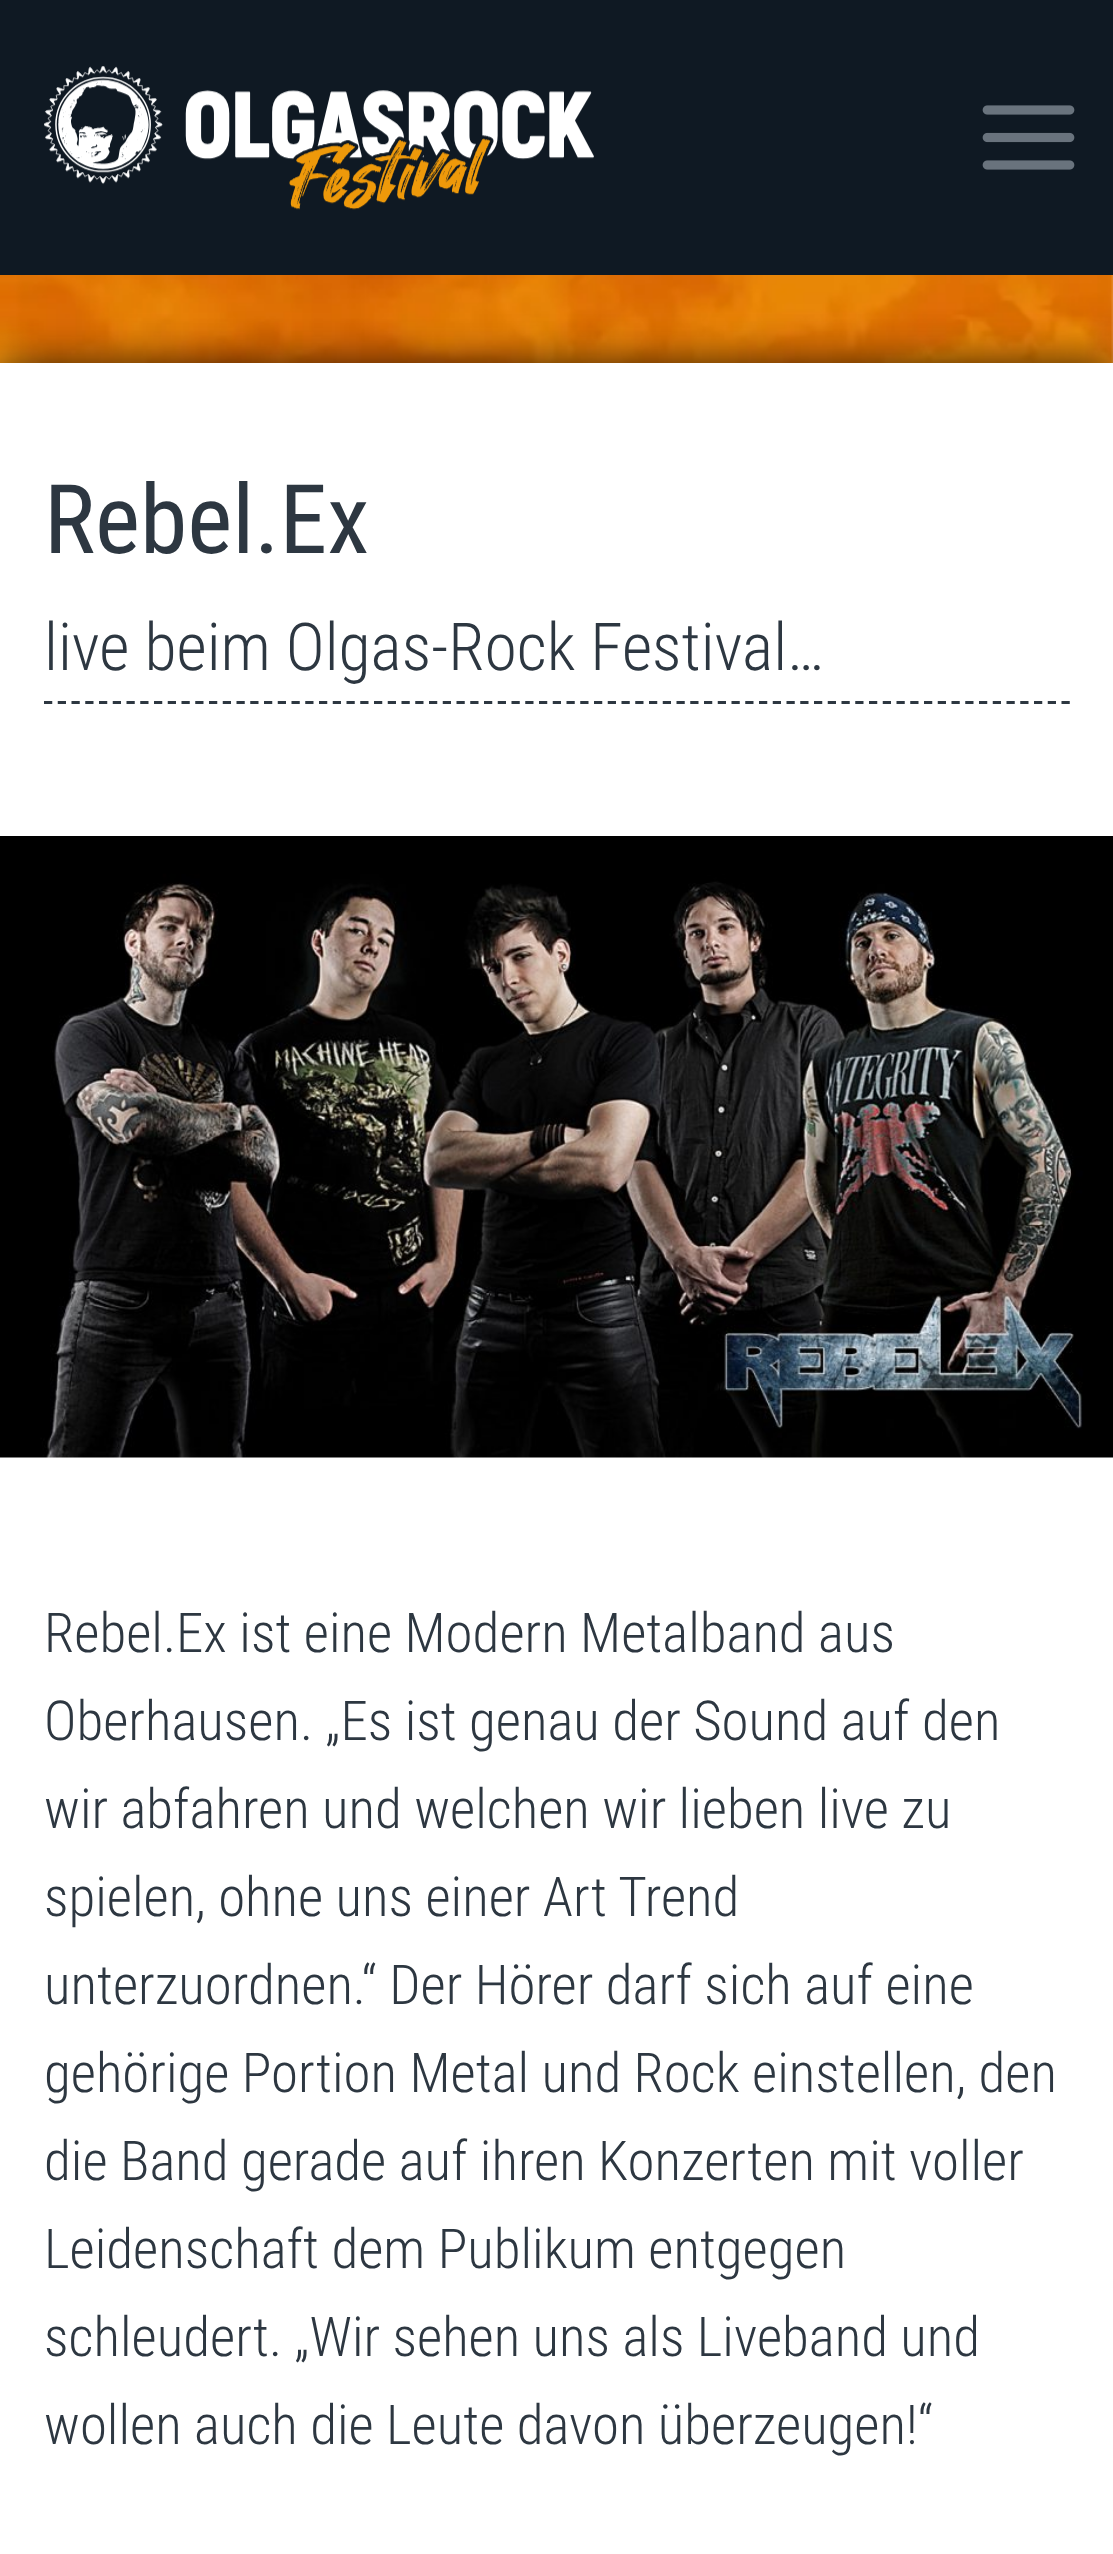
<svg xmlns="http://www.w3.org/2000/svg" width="1113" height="2554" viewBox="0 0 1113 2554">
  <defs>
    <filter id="blur1" x="-50%" y="-200%" width="200%" height="500%"><feGaussianBlur stdDeviation="20.5"/></filter>
  </defs>
  <rect width="100%" height="100%" fill="#ffffff"/>
  <image x="0" y="275" width="1113" height="88" href="img1.png"/>
  <rect x="0" y="0" width="1113" height="275" fill="#0f1923"/>
  <image x="44" y="66" width="550" height="144" href="img2.png"/>
  <image x="982" y="105" width="93" height="65" href="img3.png"/>
  <rect x="0" y="363" width="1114" height="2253" fill="#000000" fill-opacity="0.75" filter="url(#blur1)"/>
  <rect x="0" y="363" width="1113" height="2191" fill="#ffffff"/>
  <text x="44" y="553" font-family="Roboto Condensed" font-size="96" fill="#2d3741">Rebel.Ex</text>
  <path d="M44 702.5H1070" fill="none" stroke="#2d3741" stroke-width="2.8" stroke-dasharray="8.25 5.5"/>
  <text x="44" y="670" font-family="Roboto Condensed" font-size="66" font-weight="300" fill="#2d3741">live beim Olgas-Rock Festival…</text>
  <image x="0" y="836" width="1113" height="622" href="img4.png"/>
  <text x="44" y="1652" font-family="Roboto Condensed" font-size="55" font-weight="300" fill="#2d3741">Rebel.Ex ist eine Modern Metalband aus</text>
  <text x="44" y="1740" font-family="Roboto Condensed" font-size="55" font-weight="300" fill="#2d3741">Oberhausen. „Es ist genau der Sound auf den</text>
  <text x="44" y="1828" font-family="Roboto Condensed" font-size="55" font-weight="300" fill="#2d3741">wir abfahren und welchen wir lieben live zu</text>
  <text x="44" y="1916" font-family="Roboto Condensed" font-size="55" font-weight="300" fill="#2d3741">spielen, ohne uns einer Art Trend</text>
  <text x="44" y="2004" font-family="Roboto Condensed" font-size="55" font-weight="300" fill="#2d3741">unterzuordnen.“ Der Hörer darf sich auf eine</text>
  <text x="44" y="2092" font-family="Roboto Condensed" font-size="55" font-weight="300" fill="#2d3741">gehörige Portion Metal und Rock einstellen, den</text>
  <text x="44" y="2180" font-family="Roboto Condensed" font-size="55" font-weight="300" fill="#2d3741">die Band gerade auf ihren Konzerten mit voller</text>
  <text x="44" y="2268" font-family="Roboto Condensed" font-size="55" font-weight="300" fill="#2d3741">Leidenschaft dem Publikum entgegen</text>
  <text x="44" y="2356" font-family="Roboto Condensed" font-size="55" font-weight="300" fill="#2d3741">schleudert. „Wir sehen uns als Liveband und</text>
  <text x="44" y="2444" font-family="Roboto Condensed" font-size="55" font-weight="300" fill="#2d3741">wollen auch die Leute davon überzeugen!“</text>
</svg>
